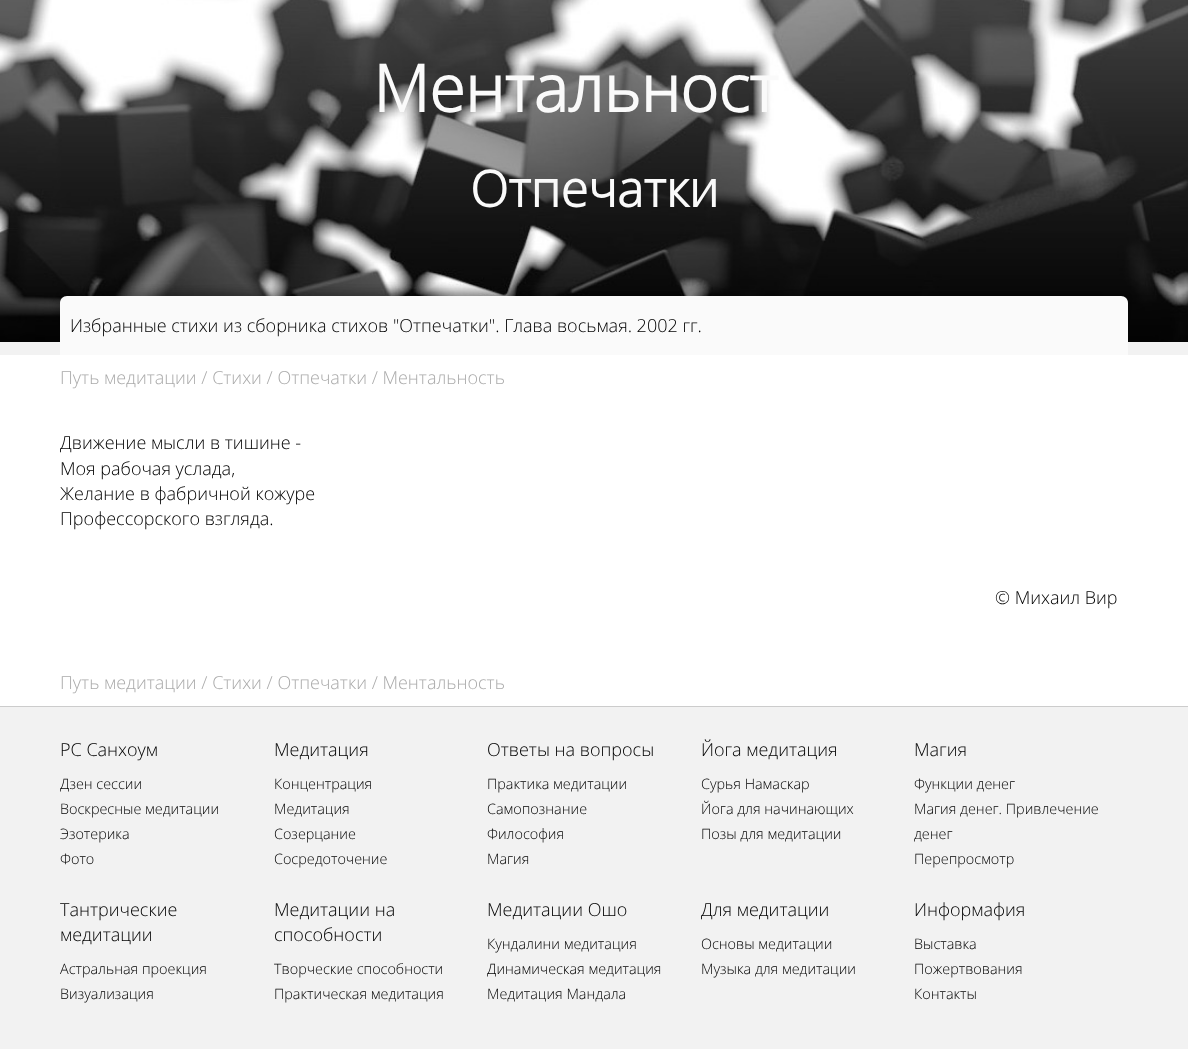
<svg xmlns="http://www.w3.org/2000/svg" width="1188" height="1049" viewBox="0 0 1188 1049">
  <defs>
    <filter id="blur1" x="-50%" y="-200%" width="200%" height="500%"><feGaussianBlur stdDeviation="5"/></filter>
  </defs>
  <rect width="100%" height="100%" fill="#ffffff"/>
  <rect x="0" y="342" width="1188" height="13" fill="#f2f2f2"/>
  <image x="0" y="0" width="1188" height="342" href="img1.png"/>
  <text x="373" y="112" font-family="Open Sans" font-size="65" font-weight="bold" fill="#fafafa">Ментальност</text>
  <text x="470" y="207" font-family="Open Sans" font-size="50" font-weight="bold" fill="#fafafa">Отпечатки</text>
  <rect x="82" y="292" width="1050" height="41" fill="#000000" fill-opacity="0.15" filter="url(#blur1)"/>
  <rect x="56" y="292" width="1050" height="41" fill="#000000" fill-opacity="0.15" filter="url(#blur1)"/>
  <path d="M67 296H1121C1125 296 1128 299 1128 303V355H60V303C60 299 63 296 67 296Z" fill="#fafafa"/>
  <text x="70" y="332" font-family="Open Sans" font-size="18" font-weight="300" fill="#000000">Избранные стихи из сборника стихов "Отпечатки". Глава восьмая. 2002 гг.</text>
  <text x="60" y="384" font-family="Open Sans" font-size="18" font-weight="300" fill="#aaaaaa">Путь медитации / Стихи / Отпечатки / Ментальность</text>
  <text x="60" y="449" font-family="Open Sans" font-size="18" font-weight="300" fill="#000000">Движение мысли в тишине -</text>
  <text x="60" y="475" font-family="Open Sans" font-size="18" font-weight="300" fill="#000000">Моя рабочая услада,</text>
  <text x="60" y="500" font-family="Open Sans" font-size="18" font-weight="300" fill="#000000">Желание в фабричной кожуре</text>
  <text x="60" y="525" font-family="Open Sans" font-size="18" font-weight="300" fill="#000000">Профессорского взгляда.</text>
  <text x="995" y="604" font-family="Open Sans" font-size="18" font-weight="300" fill="#000000">© Михаил Вир</text>
  <text x="60" y="689" font-family="Open Sans" font-size="18" font-weight="300" fill="#aaaaaa">Путь медитации / Стихи / Отпечатки / Ментальность</text>
  <rect x="0" y="707" width="1188" height="342" fill="#f2f2f2"/>
  <rect x="0" y="706" width="1188" height="1" fill="#cccccc"/>
  <text x="60" y="756" font-family="Open Sans" font-size="18" font-weight="300" fill="#000000">РС Санхоум</text>
  <text x="60" y="789" font-family="Open Sans" font-size="14.4" font-weight="300" fill="#000000">Дзен сессии</text>
  <text x="60" y="814" font-family="Open Sans" font-size="14.4" font-weight="300" fill="#000000">Воскресные медитации</text>
  <text x="60" y="839" font-family="Open Sans" font-size="14.4" font-weight="300" fill="#000000">Эзотерика</text>
  <text x="60" y="864" font-family="Open Sans" font-size="14.4" font-weight="300" fill="#000000">Фото</text>
  <text x="274" y="756" font-family="Open Sans" font-size="18" font-weight="300" fill="#000000">Медитация</text>
  <text x="274" y="789" font-family="Open Sans" font-size="14.4" font-weight="300" fill="#000000">Концентрация</text>
  <text x="274" y="814" font-family="Open Sans" font-size="14.4" font-weight="300" fill="#000000">Медитация</text>
  <text x="274" y="839" font-family="Open Sans" font-size="14.4" font-weight="300" fill="#000000">Созерцание</text>
  <text x="274" y="864" font-family="Open Sans" font-size="14.4" font-weight="300" fill="#000000">Сосредоточение</text>
  <text x="487" y="756" font-family="Open Sans" font-size="18" font-weight="300" fill="#000000">Ответы на вопросы</text>
  <text x="487" y="789" font-family="Open Sans" font-size="14.4" font-weight="300" fill="#000000">Практика медитации</text>
  <text x="487" y="814" font-family="Open Sans" font-size="14.4" font-weight="300" fill="#000000">Самопознание</text>
  <text x="487" y="839" font-family="Open Sans" font-size="14.4" font-weight="300" fill="#000000">Философия</text>
  <text x="487" y="864" font-family="Open Sans" font-size="14.4" font-weight="300" fill="#000000">Магия</text>
  <text x="701" y="756" font-family="Open Sans" font-size="18" font-weight="300" fill="#000000">Йога медитация</text>
  <text x="701" y="789" font-family="Open Sans" font-size="14.4" font-weight="300" fill="#000000">Сурья Намаскар</text>
  <text x="701" y="814" font-family="Open Sans" font-size="14.4" font-weight="300" fill="#000000">Йога для начинающих</text>
  <text x="701" y="839" font-family="Open Sans" font-size="14.4" font-weight="300" fill="#000000">Позы для медитации</text>
  <text x="914" y="756" font-family="Open Sans" font-size="18" font-weight="300" fill="#000000">Магия</text>
  <text x="914" y="789" font-family="Open Sans" font-size="14.4" font-weight="300" fill="#000000">Функции денег</text>
  <text x="914" y="814" font-family="Open Sans" font-size="14.4" font-weight="300" fill="#000000">Магия денег. Привлечение</text>
  <text x="914" y="839" font-family="Open Sans" font-size="14.4" font-weight="300" fill="#000000">денег</text>
  <text x="914" y="864" font-family="Open Sans" font-size="14.4" font-weight="300" fill="#000000">Перепросмотр</text>
  <text x="60" y="916" font-family="Open Sans" font-size="18" font-weight="300" fill="#000000">Tантрические</text>
  <text x="60" y="941" font-family="Open Sans" font-size="18" font-weight="300" fill="#000000">медитации</text>
  <text x="60" y="974" font-family="Open Sans" font-size="14.4" font-weight="300" fill="#000000">Астральная проекция</text>
  <text x="60" y="999" font-family="Open Sans" font-size="14.4" font-weight="300" fill="#000000">Визуализация</text>
  <text x="274" y="916" font-family="Open Sans" font-size="18" font-weight="300" fill="#000000">Медитации на</text>
  <text x="274" y="941" font-family="Open Sans" font-size="18" font-weight="300" fill="#000000">способности</text>
  <text x="274" y="974" font-family="Open Sans" font-size="14.4" font-weight="300" fill="#000000">Творческие способности</text>
  <text x="274" y="999" font-family="Open Sans" font-size="14.4" font-weight="300" fill="#000000">Практическая медитация</text>
  <text x="487" y="916" font-family="Open Sans" font-size="18" font-weight="300" fill="#000000">Медитации Ошо</text>
  <text x="487" y="949" font-family="Open Sans" font-size="14.4" font-weight="300" fill="#000000">Кундалини медитация</text>
  <text x="487" y="974" font-family="Open Sans" font-size="14.4" font-weight="300" fill="#000000">Динамическая медитация</text>
  <text x="487" y="999" font-family="Open Sans" font-size="14.4" font-weight="300" fill="#000000">Медитация Мандала</text>
  <text x="701" y="916" font-family="Open Sans" font-size="18" font-weight="300" fill="#000000">Для медитации</text>
  <text x="701" y="949" font-family="Open Sans" font-size="14.4" font-weight="300" fill="#000000">Основы медитации</text>
  <text x="701" y="974" font-family="Open Sans" font-size="14.4" font-weight="300" fill="#000000">Музыка для медитации</text>
  <text x="914" y="916" font-family="Open Sans" font-size="18" font-weight="300" fill="#000000">Информафия</text>
  <text x="914" y="949" font-family="Open Sans" font-size="14.4" font-weight="300" fill="#000000">Выставка</text>
  <text x="914" y="974" font-family="Open Sans" font-size="14.4" font-weight="300" fill="#000000">Пожертвования</text>
  <text x="914" y="999" font-family="Open Sans" font-size="14.4" font-weight="300" fill="#000000">Контакты</text>
</svg>
